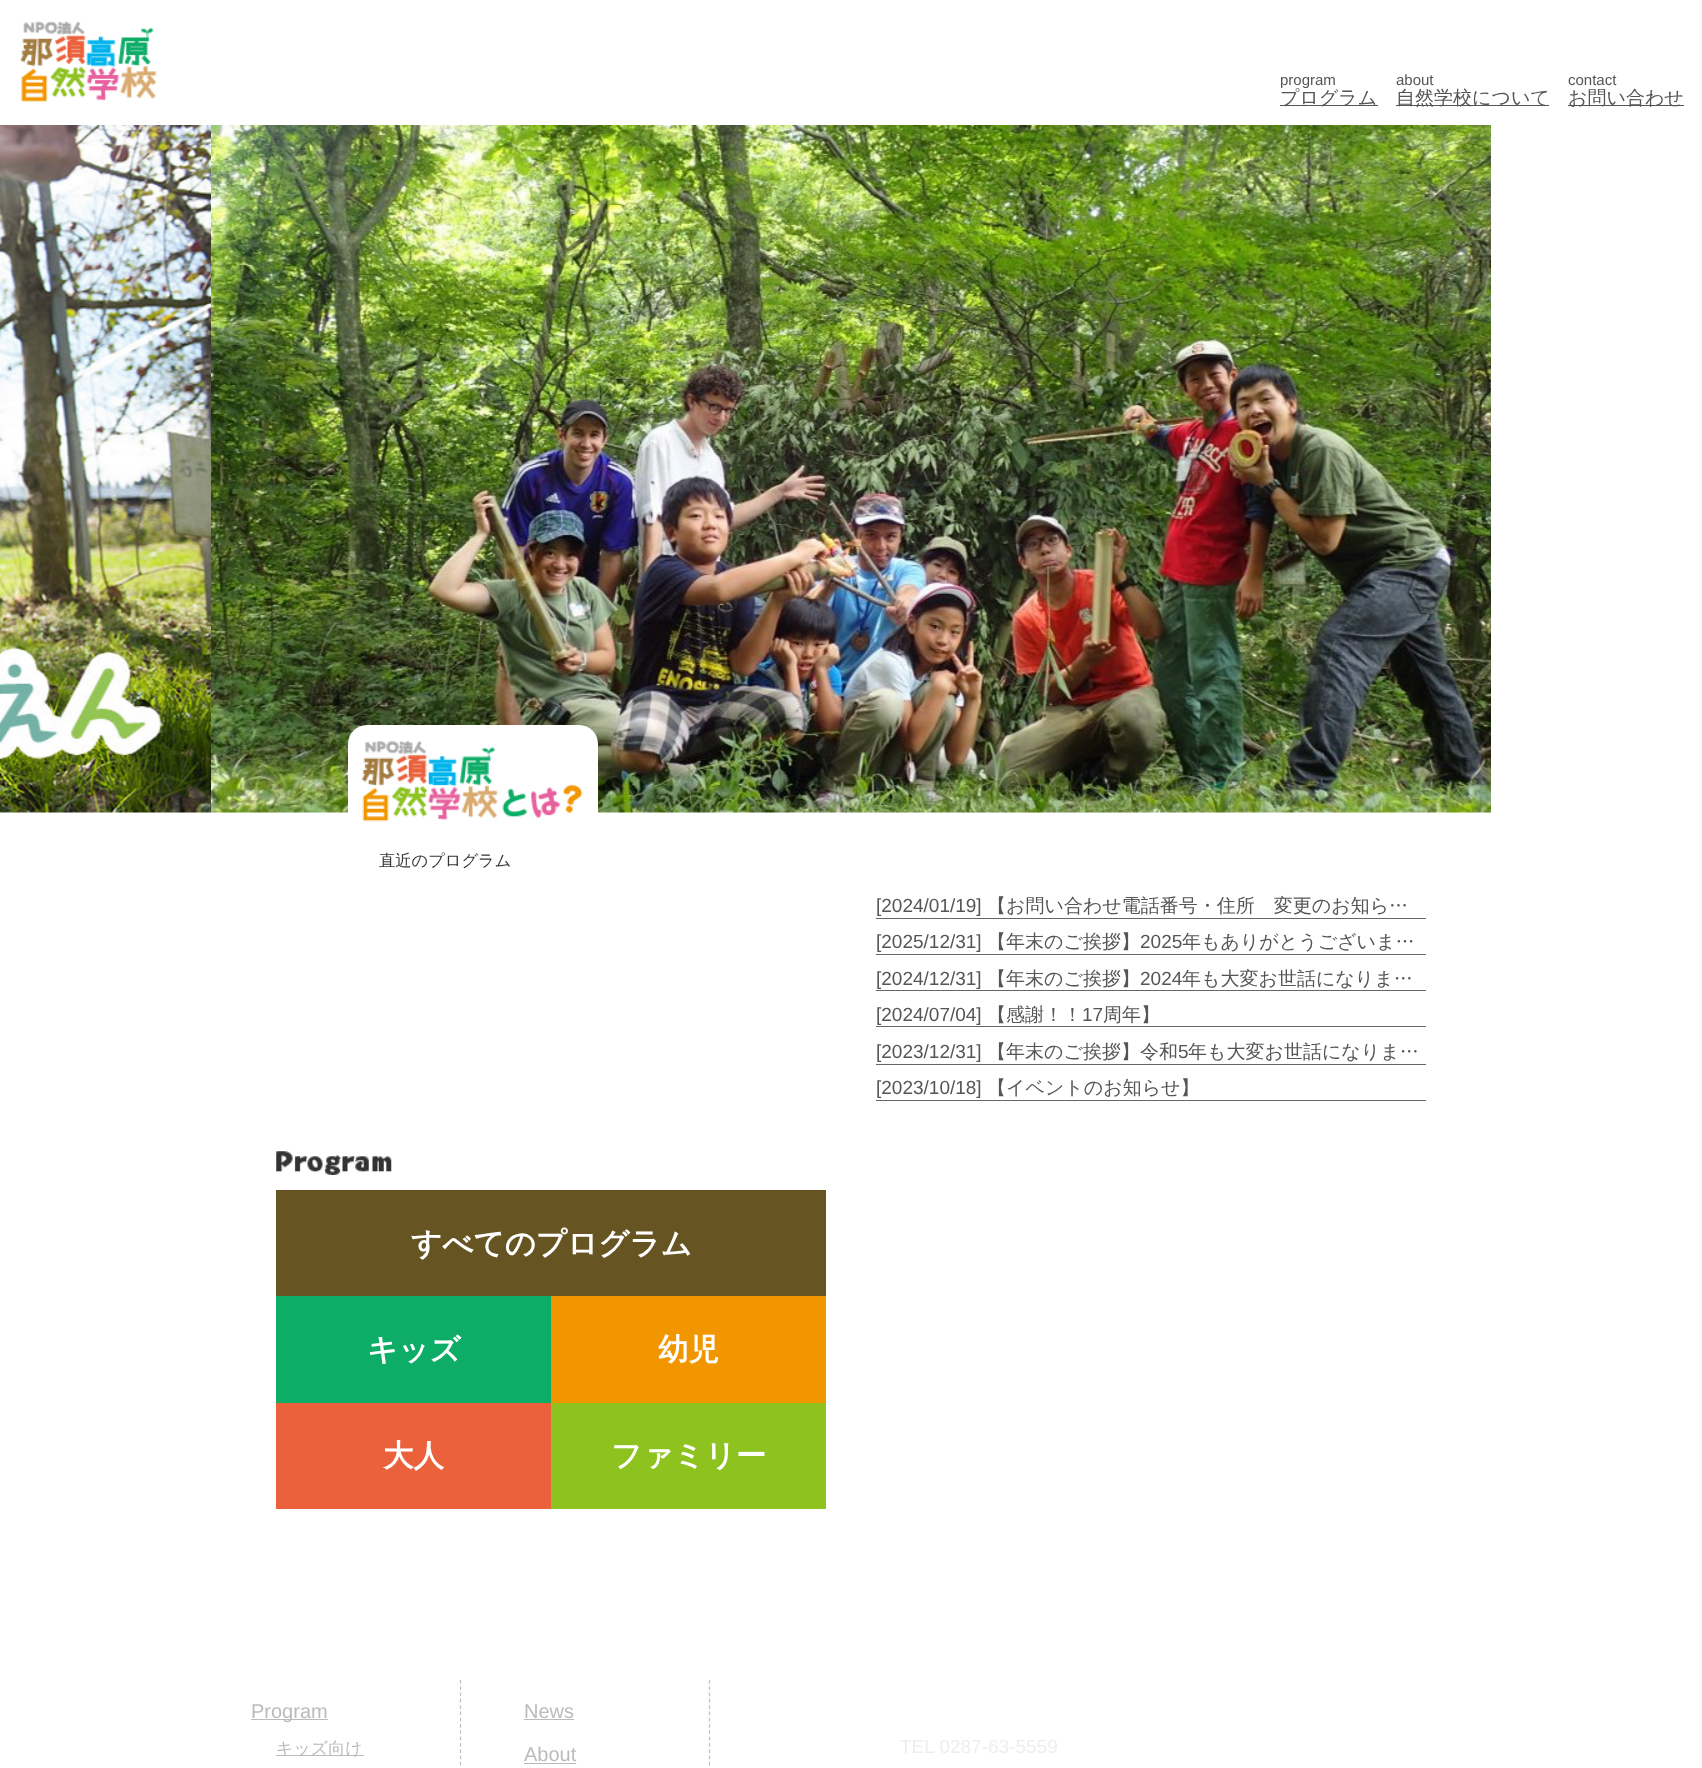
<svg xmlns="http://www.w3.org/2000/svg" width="1702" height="1768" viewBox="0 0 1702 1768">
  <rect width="100%" height="100%" fill="#ffffff"/>
  <image x="20" y="21" width="137" height="81" href="img1.png"/>
  <text x="1280" y="85" font-family="Liberation Sans" font-size="15" fill="#555555">program</text>
  <rect x="1280" y="105" width="98" height="1" fill="#555555"/>
  <text x="1280" y="104" font-family="WenQuanYi Zen Hei" font-size="19" font-weight="500" fill="#555555">プログラム</text>
  <text x="1396" y="85" font-family="Liberation Sans" font-size="15" fill="#555555">about</text>
  <rect x="1396" y="105" width="153" height="1" fill="#555555"/>
  <text x="1396" y="104" font-family="WenQuanYi Zen Hei" font-size="19" font-weight="500" fill="#555555">自然学校について</text>
  <text x="1568" y="85" font-family="Liberation Sans" font-size="15" fill="#555555">contact</text>
  <rect x="1568" y="105" width="116" height="1" fill="#555555"/>
  <text x="1568" y="104" font-family="WenQuanYi Zen Hei" font-size="19" font-weight="500" fill="#555555">お問い合わせ</text>
  <image x="0" y="125" width="211" height="688" href="img2.png"/>
  <image x="211" y="125" width="1280" height="688" href="img3.png"/>
  <path d="M367 725H579C589.5 725 598 733.5 598 744V824H348V744C348 733.5 356.5 725 367 725Z" fill="#ffffff"/>
  <image x="361" y="741" width="222" height="81" href="img4.png"/>
  <text x="379" y="866" font-family="WenQuanYi Zen Hei" font-size="16.25" font-weight="500" fill="#333333">直近のプログラム</text>
  <rect x="876" y="918" width="550" height="1" fill="#666666"/>
  <text x="876" y="912" font-family="Liberation Sans" font-size="19" fill="#555555">[2024/01/19]</text>
  <text x="987" y="912" font-family="WenQuanYi Zen Hei" font-size="19" font-weight="500" fill="#555555">【お問い合わせ電話番号・住所　変更のお知ら…</text>
  <rect x="876" y="954" width="550" height="1" fill="#666666"/>
  <text x="876" y="948" font-family="Liberation Sans" font-size="19" fill="#555555">[2025/12/31]</text>
  <text x="987" y="948" font-family="WenQuanYi Zen Hei" font-size="19" font-weight="500" fill="#555555">【年末のご挨拶】</text>
  <text x="1140" y="948" font-family="Liberation Sans" font-size="19" fill="#555555">2025</text>
  <text x="1182" y="948" font-family="WenQuanYi Zen Hei" font-size="19" font-weight="500" fill="#555555">年もありがとうございま…</text>
  <rect x="876" y="990" width="550" height="1" fill="#666666"/>
  <text x="876" y="985" font-family="Liberation Sans" font-size="19" fill="#555555">[2024/12/31]</text>
  <text x="987" y="985" font-family="WenQuanYi Zen Hei" font-size="19" font-weight="500" fill="#555555">【年末のご挨拶】</text>
  <text x="1140" y="985" font-family="Liberation Sans" font-size="19" fill="#555555">2024</text>
  <text x="1182" y="985" font-family="WenQuanYi Zen Hei" font-size="19" font-weight="500" fill="#555555">年も大変お世話になりま…</text>
  <rect x="876" y="1026" width="550" height="1" fill="#666666"/>
  <text x="876" y="1021" font-family="Liberation Sans" font-size="19" fill="#555555">[2024/07/04]</text>
  <text x="987" y="1021" font-family="WenQuanYi Zen Hei" font-size="19" font-weight="500" fill="#555555">【感謝！！</text>
  <text x="1082" y="1021" font-family="Liberation Sans" font-size="19" fill="#555555">17</text>
  <text x="1103" y="1021" font-family="WenQuanYi Zen Hei" font-size="19" font-weight="500" fill="#555555">周年】</text>
  <rect x="876" y="1064" width="550" height="1" fill="#666666"/>
  <text x="876" y="1058" font-family="Liberation Sans" font-size="19" fill="#555555">[2023/12/31]</text>
  <text x="987" y="1058" font-family="WenQuanYi Zen Hei" font-size="19" font-weight="500" fill="#555555">【年末のご挨拶】令和</text>
  <text x="1178" y="1058" font-family="Liberation Sans" font-size="19" fill="#555555">5</text>
  <text x="1188" y="1058" font-family="WenQuanYi Zen Hei" font-size="19" font-weight="500" fill="#555555">年も大変お世話になりま…</text>
  <rect x="876" y="1100" width="550" height="1" fill="#666666"/>
  <text x="876" y="1094" font-family="Liberation Sans" font-size="19" fill="#555555">[2023/10/18]</text>
  <text x="987" y="1094" font-family="WenQuanYi Zen Hei" font-size="19" font-weight="500" fill="#555555">【イベントのお知らせ】</text>
  <image x="276" y="1151" width="116" height="24" href="img5.png"/>
  <rect x="276" y="1190" width="550" height="106" fill="#665522"/>
  <text x="411" y="1254" font-family="WenQuanYi Zen Hei" font-size="30.5" font-weight="bold" fill="#ffffff">すべてのプログラム</text>
  <rect x="276" y="1296" width="275" height="107" fill="#0dac67"/>
  <text x="367" y="1360" font-family="WenQuanYi Zen Hei" font-size="30.5" font-weight="bold" fill="#ffffff">キッズ</text>
  <rect x="551" y="1296" width="275" height="107" fill="#f29600"/>
  <text x="658" y="1360" font-family="WenQuanYi Zen Hei" font-size="30.5" font-weight="bold" fill="#ffffff">幼児</text>
  <rect x="276" y="1403" width="275" height="106" fill="#ea613b"/>
  <text x="383" y="1466" font-family="WenQuanYi Zen Hei" font-size="30.5" font-weight="bold" fill="#ffffff">大人</text>
  <rect x="551" y="1403" width="275" height="106" fill="#8dc21f"/>
  <text x="611" y="1466" font-family="WenQuanYi Zen Hei" font-size="30.5" font-weight="bold" fill="#ffffff">ファミリー</text>
  <path d="M460.5 1680V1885" fill="none" stroke="#c0c0c0" stroke-width="1.2" stroke-dasharray="3.75 2.54"/>
  <rect x="251" y="1719" width="77" height="1" fill="#bbbbbb"/>
  <text x="251" y="1718" font-family="Liberation Sans" font-size="20" fill="#bbbbbb">Program</text>
  <rect x="276" y="1755" width="88" height="1" fill="#bbbbbb"/>
  <text x="276" y="1754" font-family="WenQuanYi Zen Hei" font-size="17" font-weight="500" fill="#bbbbbb">キッズ向け</text>
  <path d="M709.5 1680V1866" fill="none" stroke="#c0c0c0" stroke-width="1.2" stroke-dasharray="3.75 2.54"/>
  <text x="524" y="1718" font-family="Liberation Sans" font-size="20" fill="#bbbbbb">News</text>
  <rect x="524" y="1719" width="50" height="1" fill="#bbbbbb"/>
  <text x="524" y="1761" font-family="Liberation Sans" font-size="20" fill="#bbbbbb">About</text>
  <rect x="524" y="1763" width="52" height="1" fill="#bbbbbb"/>
  <text x="900" y="1753" font-family="Liberation Sans" font-size="19" fill="#eeeeee">TEL 0287-63-5559</text>
</svg>
